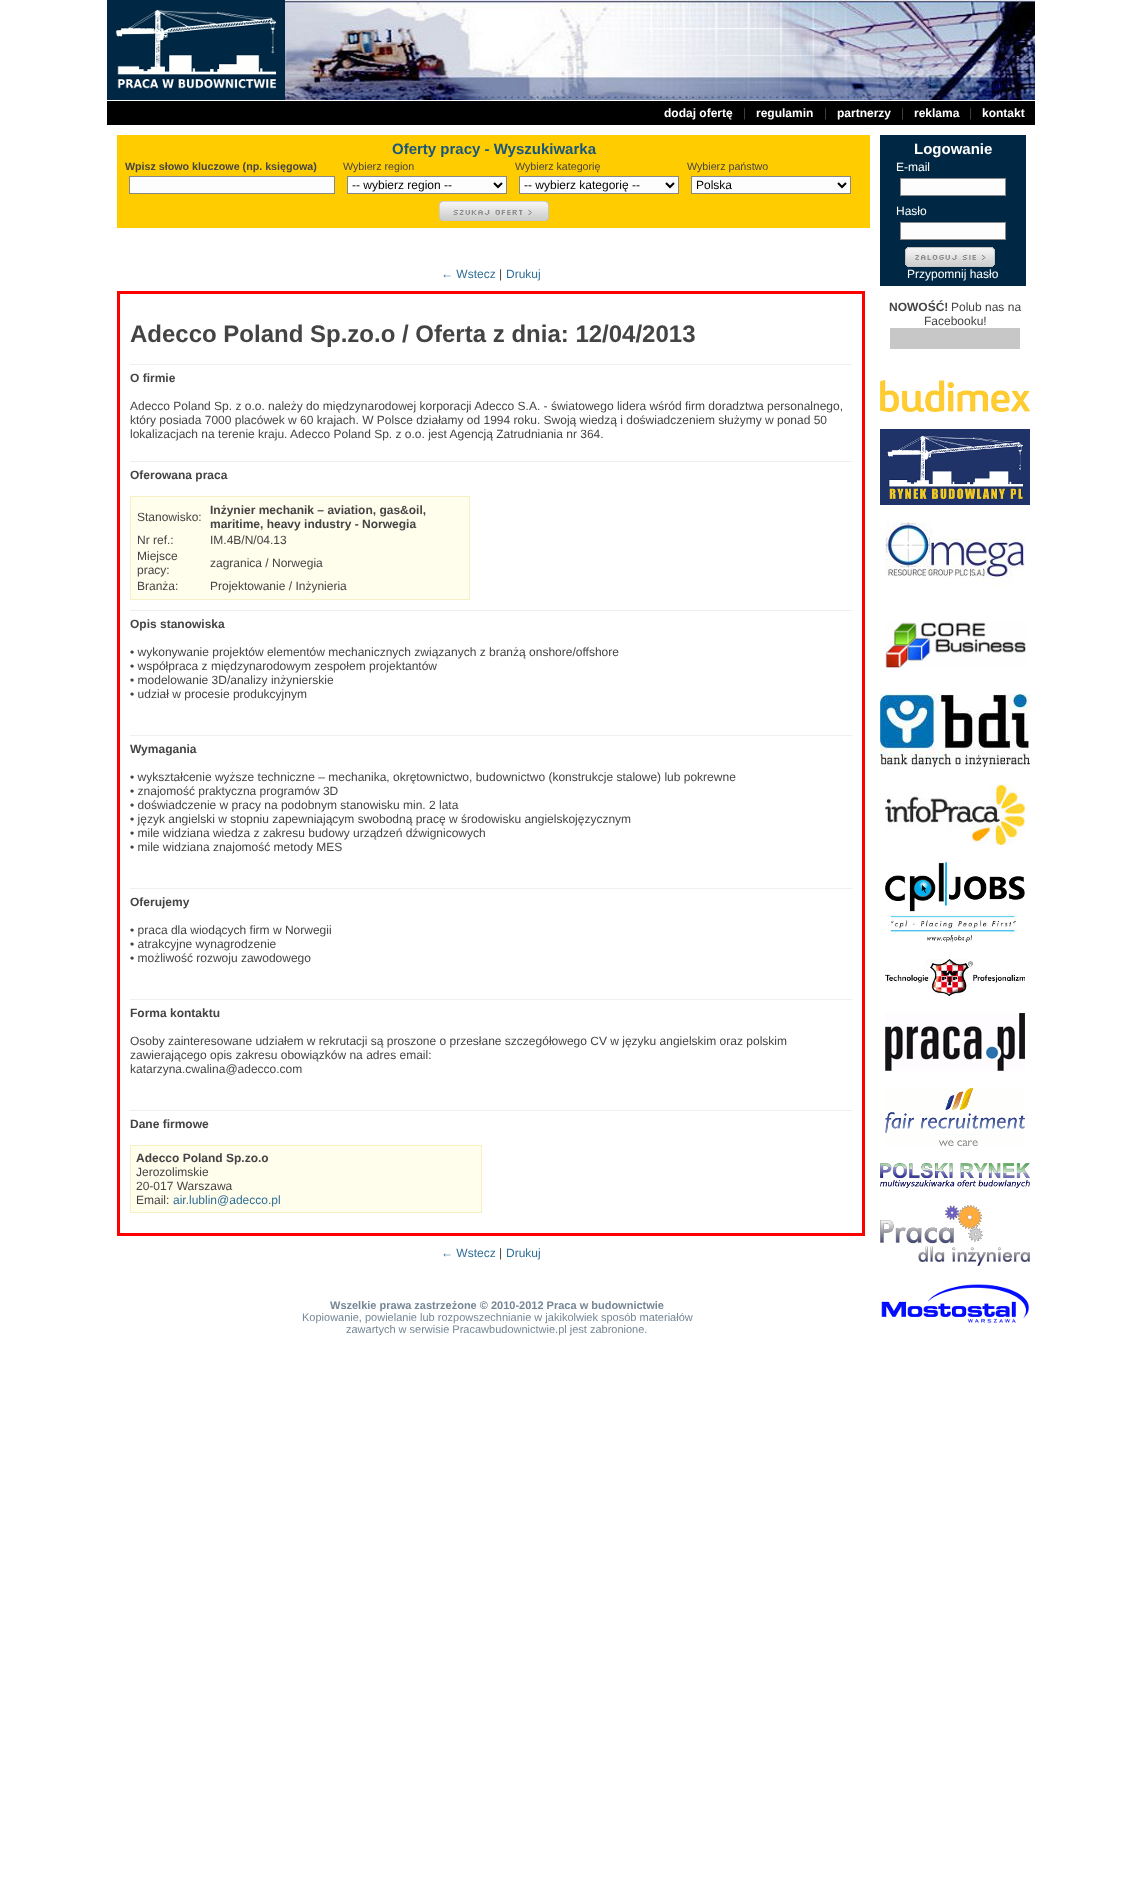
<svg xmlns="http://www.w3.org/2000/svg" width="1142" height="1901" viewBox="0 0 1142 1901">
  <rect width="100%" height="100%" fill="#ffffff"/>
  <image x="107" y="0" width="178" height="100" href="img1.png"/>
  <image x="285" y="0" width="750" height="100" href="img2.png"/>
  <rect x="107" y="101" width="928" height="24" fill="#000000"/>
  <text x="664" y="117" font-family="Liberation Sans" font-size="12" font-weight="bold" fill="#ffffff">dodaj ofertę</text>
  <text x="743" y="117" font-family="Liberation Sans" font-size="12" fill="#444444">|</text>
  <text x="756" y="117" font-family="Liberation Sans" font-size="12" font-weight="bold" fill="#ffffff">regulamin</text>
  <text x="824" y="117" font-family="Liberation Sans" font-size="12" fill="#444444">|</text>
  <text x="837" y="117" font-family="Liberation Sans" font-size="12" font-weight="bold" fill="#ffffff">partnerzy</text>
  <text x="901" y="117" font-family="Liberation Sans" font-size="12" fill="#444444">|</text>
  <text x="914" y="117" font-family="Liberation Sans" font-size="12" font-weight="bold" fill="#ffffff">reklama</text>
  <text x="969" y="117" font-family="Liberation Sans" font-size="12" fill="#444444">|</text>
  <text x="982" y="117" font-family="Liberation Sans" font-size="12" font-weight="bold" fill="#ffffff">kontakt</text>
  <rect x="117" y="135" width="753" height="93" fill="#ffcc00"/>
  <text x="392" y="154" font-family="Liberation Sans" font-size="15" font-weight="bold" fill="#1a577d">Oferty pracy - Wyszukiwarka</text>
  <text x="125" y="170" font-family="Liberation Sans" font-size="10.7" font-weight="bold" fill="#444444">Wpisz słowo kluczowe (np. księgowa)</text>
  <rect x="129.5" y="176.5" width="205" height="17" fill="#fdfdfd" stroke="#888888"/>
  <text x="343" y="170" font-family="Liberation Sans" font-size="10.7" fill="#444444">Wybierz region</text>
  <rect x="347.5" y="176.5" width="159" height="17" fill="#fdfdfd" stroke="#888888"/>
  <path d="M494 183L498 187L502 183" fill="none" stroke="#000000" stroke-width="2"/>
  <text x="352" y="189" font-family="Liberation Sans" font-size="12" fill="#000000">-- wybierz region --</text>
  <text x="515" y="170" font-family="Liberation Sans" font-size="10.7" fill="#444444">Wybierz kategorię</text>
  <rect x="519.5" y="176.5" width="159" height="17" fill="#fdfdfd" stroke="#888888"/>
  <path d="M666 183L670 187L674 183" fill="none" stroke="#000000" stroke-width="2"/>
  <text x="524" y="189" font-family="Liberation Sans" font-size="12" fill="#000000">-- wybierz kategorię --</text>
  <text x="687" y="170" font-family="Liberation Sans" font-size="10.7" fill="#444444">Wybierz państwo</text>
  <rect x="691.5" y="176.5" width="159" height="17" fill="#fdfdfd" stroke="#888888"/>
  <path d="M838 183L842 187L846 183" fill="none" stroke="#000000" stroke-width="2"/>
  <text x="696" y="189" font-family="Liberation Sans" font-size="12" fill="#000000">Polska</text>
  <image x="439" y="201" width="110" height="20" href="img3.png"/>
  <text x="441" y="278" font-family="Liberation Sans" font-size="12" fill="#2f6e96">← Wstecz</text>
  <text x="499" y="278" font-family="Liberation Sans" font-size="12" fill="#444444">|</text>
  <text x="506" y="278" font-family="Liberation Sans" font-size="12" fill="#2f6e96">Drukuj</text>
  <rect x="118.5" y="292.5" width="745" height="942" fill="none" stroke="#ff0000" stroke-width="3"/>
  <text x="130" y="342" font-family="Liberation Sans" font-size="24" font-weight="bold" fill="#444444">Adecco Poland Sp.zo.o / Oferta z dnia: 12/04/2013</text>
  <rect x="130" y="364" width="722" height="1" fill="#efefef"/>
  <text x="130" y="382" font-family="Liberation Sans" font-size="12" font-weight="bold" fill="#444444">O firmie</text>
  <text x="130" y="410" font-family="Liberation Sans" font-size="12" fill="#444444">Adecco Poland Sp. z o.o. należy do międzynarodowej korporacji Adecco S.A. - światowego lidera wśród firm doradztwa personalnego,</text>
  <text x="130" y="424" font-family="Liberation Sans" font-size="12" fill="#444444">który posiada 7000 placówek w 60 krajach. W Polsce działamy od 1994 roku. Swoją wiedzą i doświadczeniem służymy w ponad 50</text>
  <text x="130" y="438" font-family="Liberation Sans" font-size="12" fill="#444444">lokalizacjach na terenie kraju. Adecco Poland Sp. z o.o. jest Agencją Zatrudniania nr 364.</text>
  <rect x="130" y="461" width="722" height="1" fill="#efefef"/>
  <text x="130" y="479" font-family="Liberation Sans" font-size="12" font-weight="bold" fill="#444444">Oferowana praca</text>
  <rect x="130.5" y="496.5" width="339" height="103" fill="#fffdec" stroke="#f6f1c4"/>
  <text x="137" y="521" font-family="Liberation Sans" font-size="12" fill="#444444">Stanowisko:</text>
  <text x="210" y="514" font-family="Liberation Sans" font-size="12" font-weight="bold" fill="#444444">Inżynier mechanik – aviation, gas&amp;oil,</text>
  <text x="210" y="528" font-family="Liberation Sans" font-size="12" font-weight="bold" fill="#444444">maritime, heavy industry - Norwegia</text>
  <text x="137" y="544" font-family="Liberation Sans" font-size="12" fill="#444444">Nr ref.:</text>
  <text x="210" y="544" font-family="Liberation Sans" font-size="12" fill="#444444">IM.4B/N/04.13</text>
  <text x="137" y="560" font-family="Liberation Sans" font-size="12" fill="#444444">Miejsce</text>
  <text x="137" y="574" font-family="Liberation Sans" font-size="12" fill="#444444">pracy:</text>
  <text x="210" y="567" font-family="Liberation Sans" font-size="12" fill="#444444">zagranica / Norwegia</text>
  <text x="137" y="590" font-family="Liberation Sans" font-size="12" fill="#444444">Branża:</text>
  <text x="210" y="590" font-family="Liberation Sans" font-size="12" fill="#444444">Projektowanie / Inżynieria</text>
  <rect x="130" y="610" width="722" height="1" fill="#efefef"/>
  <text x="130" y="628" font-family="Liberation Sans" font-size="12" font-weight="bold" fill="#444444">Opis stanowiska</text>
  <text x="130" y="656" font-family="Liberation Sans" font-size="12" fill="#444444">• wykonywanie projektów elementów mechanicznych związanych z branżą onshore/offshore</text>
  <text x="130" y="670" font-family="Liberation Sans" font-size="12" fill="#444444">• współpraca z międzynarodowym zespołem projektantów</text>
  <text x="130" y="684" font-family="Liberation Sans" font-size="12" fill="#444444">• modelowanie 3D/analizy inżynierskie</text>
  <text x="130" y="698" font-family="Liberation Sans" font-size="12" fill="#444444">• udział w procesie produkcyjnym</text>
  <rect x="130" y="735" width="722" height="1" fill="#efefef"/>
  <text x="130" y="753" font-family="Liberation Sans" font-size="12" font-weight="bold" fill="#444444">Wymagania</text>
  <text x="130" y="781" font-family="Liberation Sans" font-size="12" fill="#444444">• wykształcenie wyższe techniczne – mechanika, okrętownictwo, budownictwo (konstrukcje stalowe) lub pokrewne</text>
  <text x="130" y="795" font-family="Liberation Sans" font-size="12" fill="#444444">• znajomość praktyczna programów 3D</text>
  <text x="130" y="809" font-family="Liberation Sans" font-size="12" fill="#444444">• doświadczenie w pracy na podobnym stanowisku min. 2 lata</text>
  <text x="130" y="823" font-family="Liberation Sans" font-size="12" fill="#444444">• język angielski w stopniu zapewniającym swobodną pracę w środowisku angielskojęzycznym</text>
  <text x="130" y="837" font-family="Liberation Sans" font-size="12" fill="#444444">• mile widziana wiedza z zakresu budowy urządzeń dźwignicowych</text>
  <text x="130" y="851" font-family="Liberation Sans" font-size="12" fill="#444444">• mile widziana znajomość metody MES</text>
  <rect x="130" y="888" width="722" height="1" fill="#efefef"/>
  <text x="130" y="906" font-family="Liberation Sans" font-size="12" font-weight="bold" fill="#444444">Oferujemy</text>
  <text x="130" y="934" font-family="Liberation Sans" font-size="12" fill="#444444">• praca dla wiodących firm w Norwegii</text>
  <text x="130" y="948" font-family="Liberation Sans" font-size="12" fill="#444444">• atrakcyjne wynagrodzenie</text>
  <text x="130" y="962" font-family="Liberation Sans" font-size="12" fill="#444444">• możliwość rozwoju zawodowego</text>
  <rect x="130" y="999" width="722" height="1" fill="#efefef"/>
  <text x="130" y="1017" font-family="Liberation Sans" font-size="12" font-weight="bold" fill="#444444">Forma kontaktu</text>
  <text x="130" y="1045" font-family="Liberation Sans" font-size="12" fill="#444444">Osoby zainteresowane udziałem w rekrutacji są proszone o przesłane szczegółowego CV w języku angielskim oraz polskim</text>
  <text x="130" y="1059" font-family="Liberation Sans" font-size="12" fill="#444444">zawierającego opis zakresu obowiązków na adres email:</text>
  <text x="130" y="1073" font-family="Liberation Sans" font-size="12" fill="#444444">katarzyna.cwalina@adecco.com</text>
  <rect x="130" y="1110" width="722" height="1" fill="#efefef"/>
  <text x="130" y="1128" font-family="Liberation Sans" font-size="12" font-weight="bold" fill="#444444">Dane firmowe</text>
  <rect x="130.5" y="1145.5" width="351" height="67" fill="#fffdec" stroke="#f6f1c4"/>
  <text x="136" y="1162" font-family="Liberation Sans" font-size="12" font-weight="bold" fill="#444444">Adecco Poland Sp.zo.o</text>
  <text x="136" y="1176" font-family="Liberation Sans" font-size="12" fill="#444444">Jerozolimskie</text>
  <text x="136" y="1190" font-family="Liberation Sans" font-size="12" fill="#444444">20-017 Warszawa</text>
  <text x="136" y="1204" font-family="Liberation Sans" font-size="12" fill="#444444">Email:</text>
  <text x="173" y="1204" font-family="Liberation Sans" font-size="12" fill="#2f6e96">air.lublin@adecco.pl</text>
  <text x="441" y="1257" font-family="Liberation Sans" font-size="12" fill="#2f6e96">← Wstecz</text>
  <text x="499" y="1257" font-family="Liberation Sans" font-size="12" fill="#444444">|</text>
  <text x="506" y="1257" font-family="Liberation Sans" font-size="12" fill="#2f6e96">Drukuj</text>
  <text x="330" y="1309" font-family="Liberation Sans" font-size="11" font-weight="bold" fill="#758694">Wszelkie prawa zastrzeżone © 2010-2012 Praca w budownictwie</text>
  <text x="302" y="1321" font-family="Liberation Sans" font-size="11" fill="#758694">Kopiowanie, powielanie lub rozpowszechnianie w jakikolwiek sposób materiałów</text>
  <text x="346" y="1333" font-family="Liberation Sans" font-size="11" fill="#758694">zawartych w serwisie Pracawbudownictwie.pl jest zabronione.</text>
  <rect x="880" y="135" width="146" height="151" fill="#002844"/>
  <text x="914" y="154" font-family="Liberation Sans" font-size="15" font-weight="bold" fill="#ffffff">Logowanie</text>
  <text x="896" y="171" font-family="Liberation Sans" font-size="12" fill="#ffffff">E-mail</text>
  <rect x="900.5" y="178.5" width="105" height="17" fill="#fdfdfd" stroke="#888888"/>
  <text x="896" y="215" font-family="Liberation Sans" font-size="12" fill="#ffffff">Hasło</text>
  <rect x="900.5" y="222.5" width="105" height="17" fill="#fdfdfd" stroke="#888888"/>
  <image x="905" y="247" width="90" height="20" href="img4.png"/>
  <text x="907" y="278" font-family="Liberation Sans" font-size="12" fill="#ffffff">Przypomnij hasło</text>
  <text x="889" y="311" font-family="Liberation Sans" font-size="12" font-weight="bold" fill="#444444">NOWOŚĆ!</text>
  <text x="951" y="311" font-family="Liberation Sans" font-size="12" fill="#444444">Polub nas na</text>
  <text x="924" y="325" font-family="Liberation Sans" font-size="12" fill="#444444">Facebooku!</text>
  <rect x="890" y="328" width="130" height="21" fill="#c7c7c7"/>
  <image x="880" y="380" width="150" height="32" href="img5.png"/>
  <image x="880" y="429" width="150" height="76" href="img6.png"/>
  <image x="885" y="522" width="140" height="64" href="img7.png"/>
  <image x="885" y="622" width="141" height="46" href="img8.png"/>
  <image x="880" y="694" width="150" height="73" href="img9.png"/>
  <image x="885" y="784" width="140" height="61" href="img10.png"/>
  <image x="885" y="862" width="140" height="80" href="img11.png"/>
  <image x="885" y="959" width="140" height="37" href="img12.png"/>
  <image x="885" y="1013" width="140" height="58" href="img13.png"/>
  <image x="885" y="1088" width="140" height="58" href="img14.png"/>
  <image x="880" y="1163" width="150" height="25" href="img15.png"/>
  <image x="880" y="1205" width="150" height="61" href="img16.png"/>
  <image x="881" y="1284" width="149" height="40" href="img17.png"/>
</svg>
